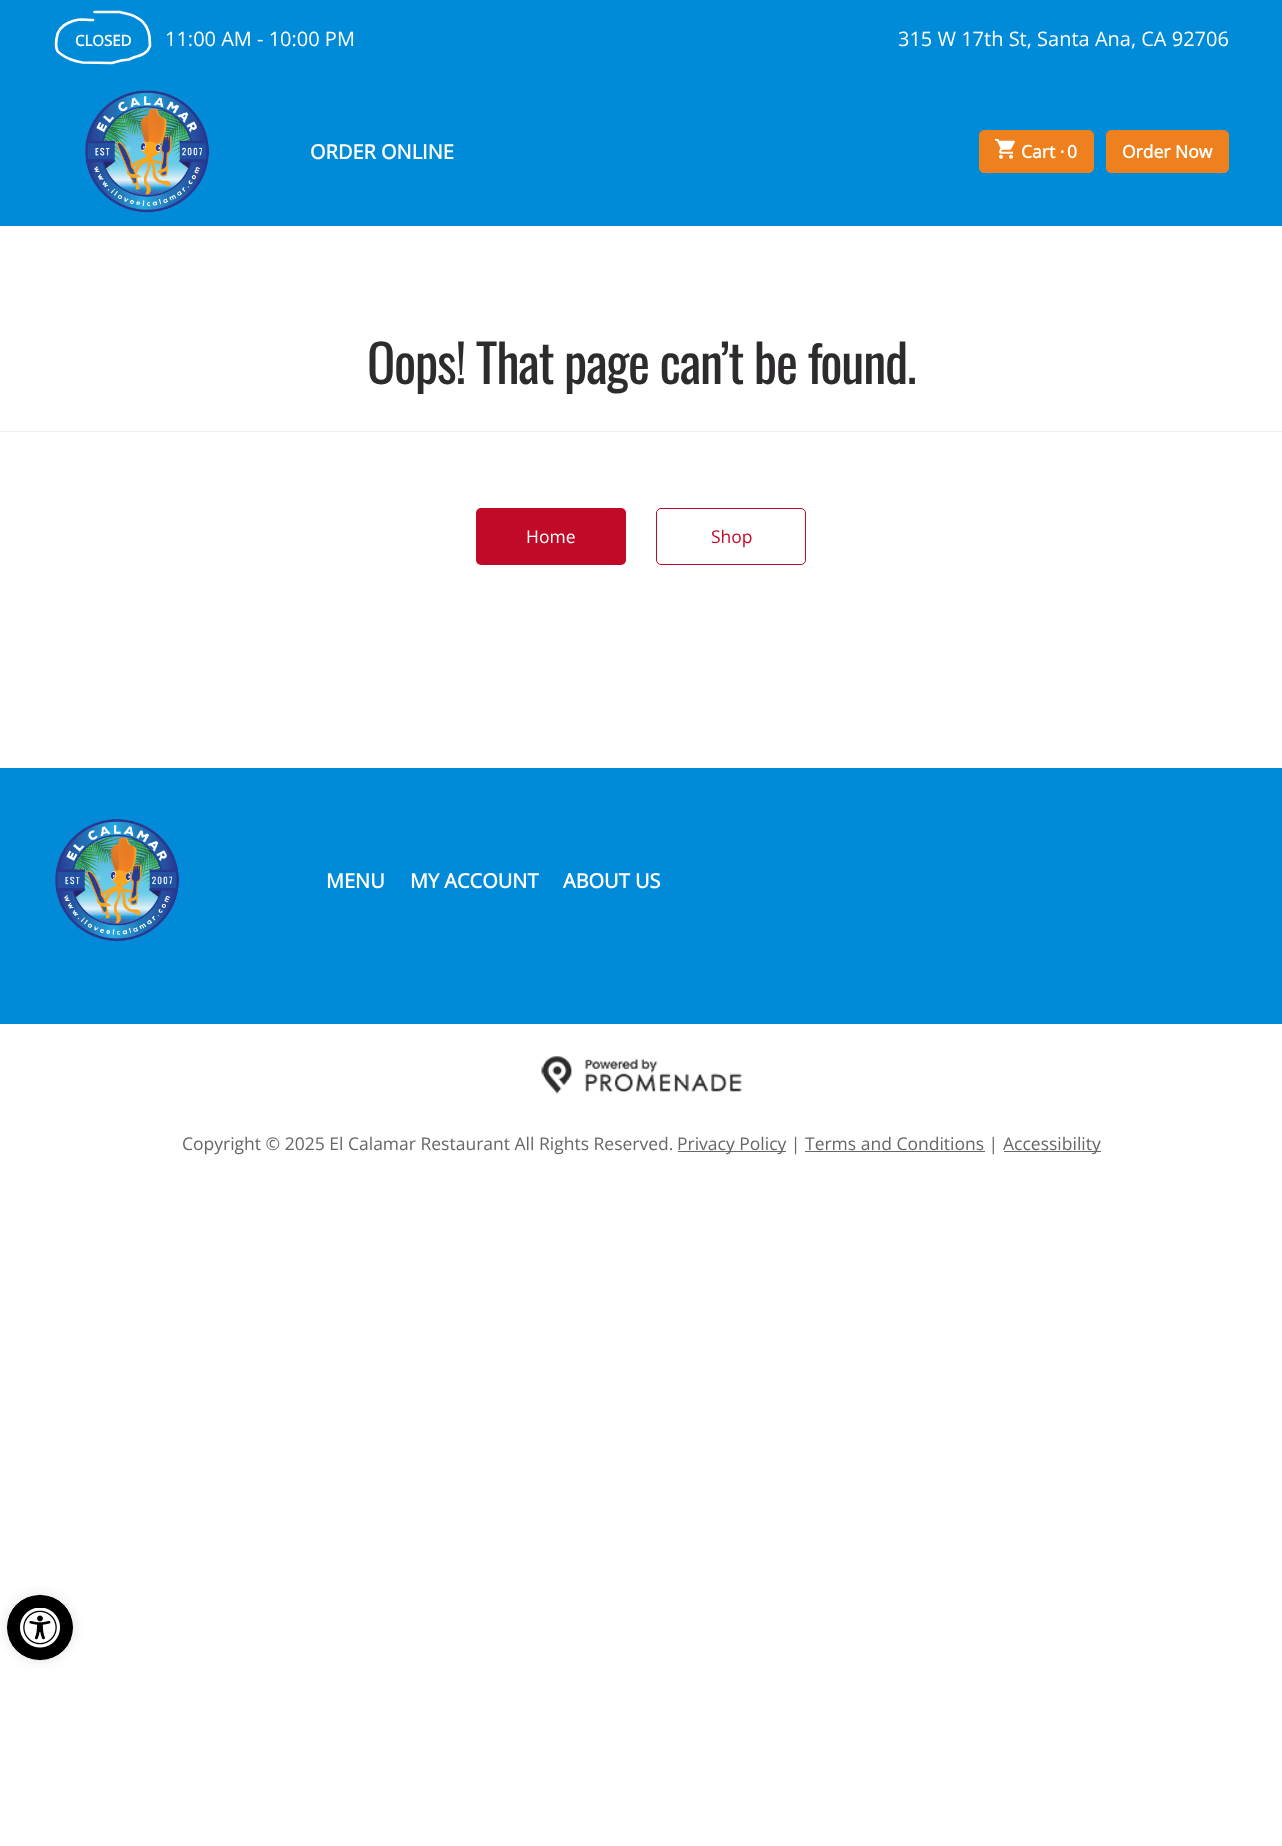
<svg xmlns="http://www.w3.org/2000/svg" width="1282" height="1846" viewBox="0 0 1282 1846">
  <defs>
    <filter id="blur1" x="-50%" y="-200%" width="200%" height="500%"><feGaussianBlur stdDeviation="6"/></filter>
  </defs>
  <rect width="100%" height="100%" fill="#ffffff"/>
  <rect x="0" y="0" width="1282" height="226" fill="#008bd8"/>
  <path d="M93 20C83 20 78.5 18 69 22.5C62 25.5 57 31.5 56.5 39C56 42.5 55.5 47.5 57.5 51C58.5 52.5 60 53.5 61.5 54.5C67 58.5 75.5 61.5 82.5 62.5L112 63L121 60.5L129 59.5L133.5 57.5C140.5 55.5 148 53.5 150 45.5L149.5 36.5C147.5 24 141 18.5 130 14.5L119.5 12H94.5" fill="none" stroke="#ffffff" stroke-width="2.7" stroke-linecap="round"/>
  <text x="75" y="46" font-family="Open Sans" font-size="15" font-weight="bold" fill="#ffffff">CLOSED</text>
  <text x="165" y="46" font-family="Open Sans" font-size="20" fill="#ffffff">11:00 AM - 10:00 PM</text>
  <text x="898" y="46" font-family="Open Sans" font-size="20" fill="#ffffff">315 W 17th St, Santa Ana, CA 92706</text>
  <image x="85" y="90" width="124" height="123" href="img1.png"/>
  <text x="310" y="159" font-family="Open Sans" font-size="20" font-weight="bold" fill="#ffffff">ORDER ONLINE</text>
  <rect x="979.5" y="130.5" width="114" height="42" rx="4.5" fill="#ee801e" stroke="#ee801e"/>
  <image x="995" y="139" width="20" height="20" href="img2.png"/>
  <text x="1021" y="158" font-family="Open Sans" font-size="17.5" font-weight="bold" fill="#ffffff">Cart ·</text>
  <text x="1067" y="158" font-family="Open Sans" font-size="17.5" font-weight="bold" fill="#ffffff">0</text>
  <rect x="1106.5" y="130.5" width="122" height="42" rx="4.5" fill="#ee801e" stroke="#ee801e"/>
  <text x="1122" y="158" font-family="Open Sans" font-size="17.5" font-weight="bold" fill="#ffffff">Order Now</text>
  <rect x="0" y="431" width="1282" height="1" fill="#eeeeee"/>
  <text x="367" y="384" font-family="Oswald" font-size="52.4" letter-spacing="-1.25" fill="#2d2b2d">Oops! That page can’t be found.</text>
  <rect x="476" y="508" width="150" height="57" rx="5" fill="#c00a27"/>
  <text x="526" y="543" font-family="Open Sans" font-size="17.5" fill="#ffffff">Home</text>
  <rect x="656.5" y="508.5" width="149" height="56" rx="4.5" fill="none" stroke="#c00a27"/>
  <text x="711" y="543" font-family="Open Sans" font-size="17.5" fill="#c00a27">Shop</text>
  <rect x="0" y="768" width="1282" height="256" fill="#008ad7"/>
  <image x="55" y="819" width="124" height="123" href="img3.png"/>
  <text x="326" y="888" font-family="Open Sans" font-size="20" font-weight="bold" fill="#ffffff">MENU</text>
  <text x="410" y="888" font-family="Open Sans" font-size="20" font-weight="bold" fill="#ffffff">MY ACCOUNT</text>
  <text x="563" y="888" font-family="Open Sans" font-size="20" font-weight="bold" fill="#ffffff">ABOUT US</text>
  <image x="541" y="1056" width="201" height="38" href="img4.png"/>
  <text x="182" y="1150" font-family="Open Sans" font-size="17.5" fill="#666666">Copyright © 2025 El Calamar Restaurant All Rights Reserved.</text>
  <rect x="678" y="1151" width="108" height="1" fill="#666666"/>
  <text x="677" y="1150" font-family="Open Sans" font-size="17.5" fill="#666666">Privacy Policy | Terms and Conditions |</text>
  <rect x="1004" y="1151" width="97" height="1" fill="#666666"/>
  <text x="1003" y="1150" font-family="Open Sans" font-size="17.5" fill="#666666">Accessibility</text>
  <rect x="805" y="1151" width="180" height="1" fill="#666666"/>
  <rect x="6" y="1594" width="68" height="67" rx="33.5" fill="#000000" fill-opacity="0.1" filter="url(#blur1)"/>
  <rect x="6.5" y="1594.5" width="67" height="66" rx="33" fill="#000000" stroke="#ffffff"/>
  <image x="20" y="1608" width="40" height="40" href="img5.png"/>
</svg>
